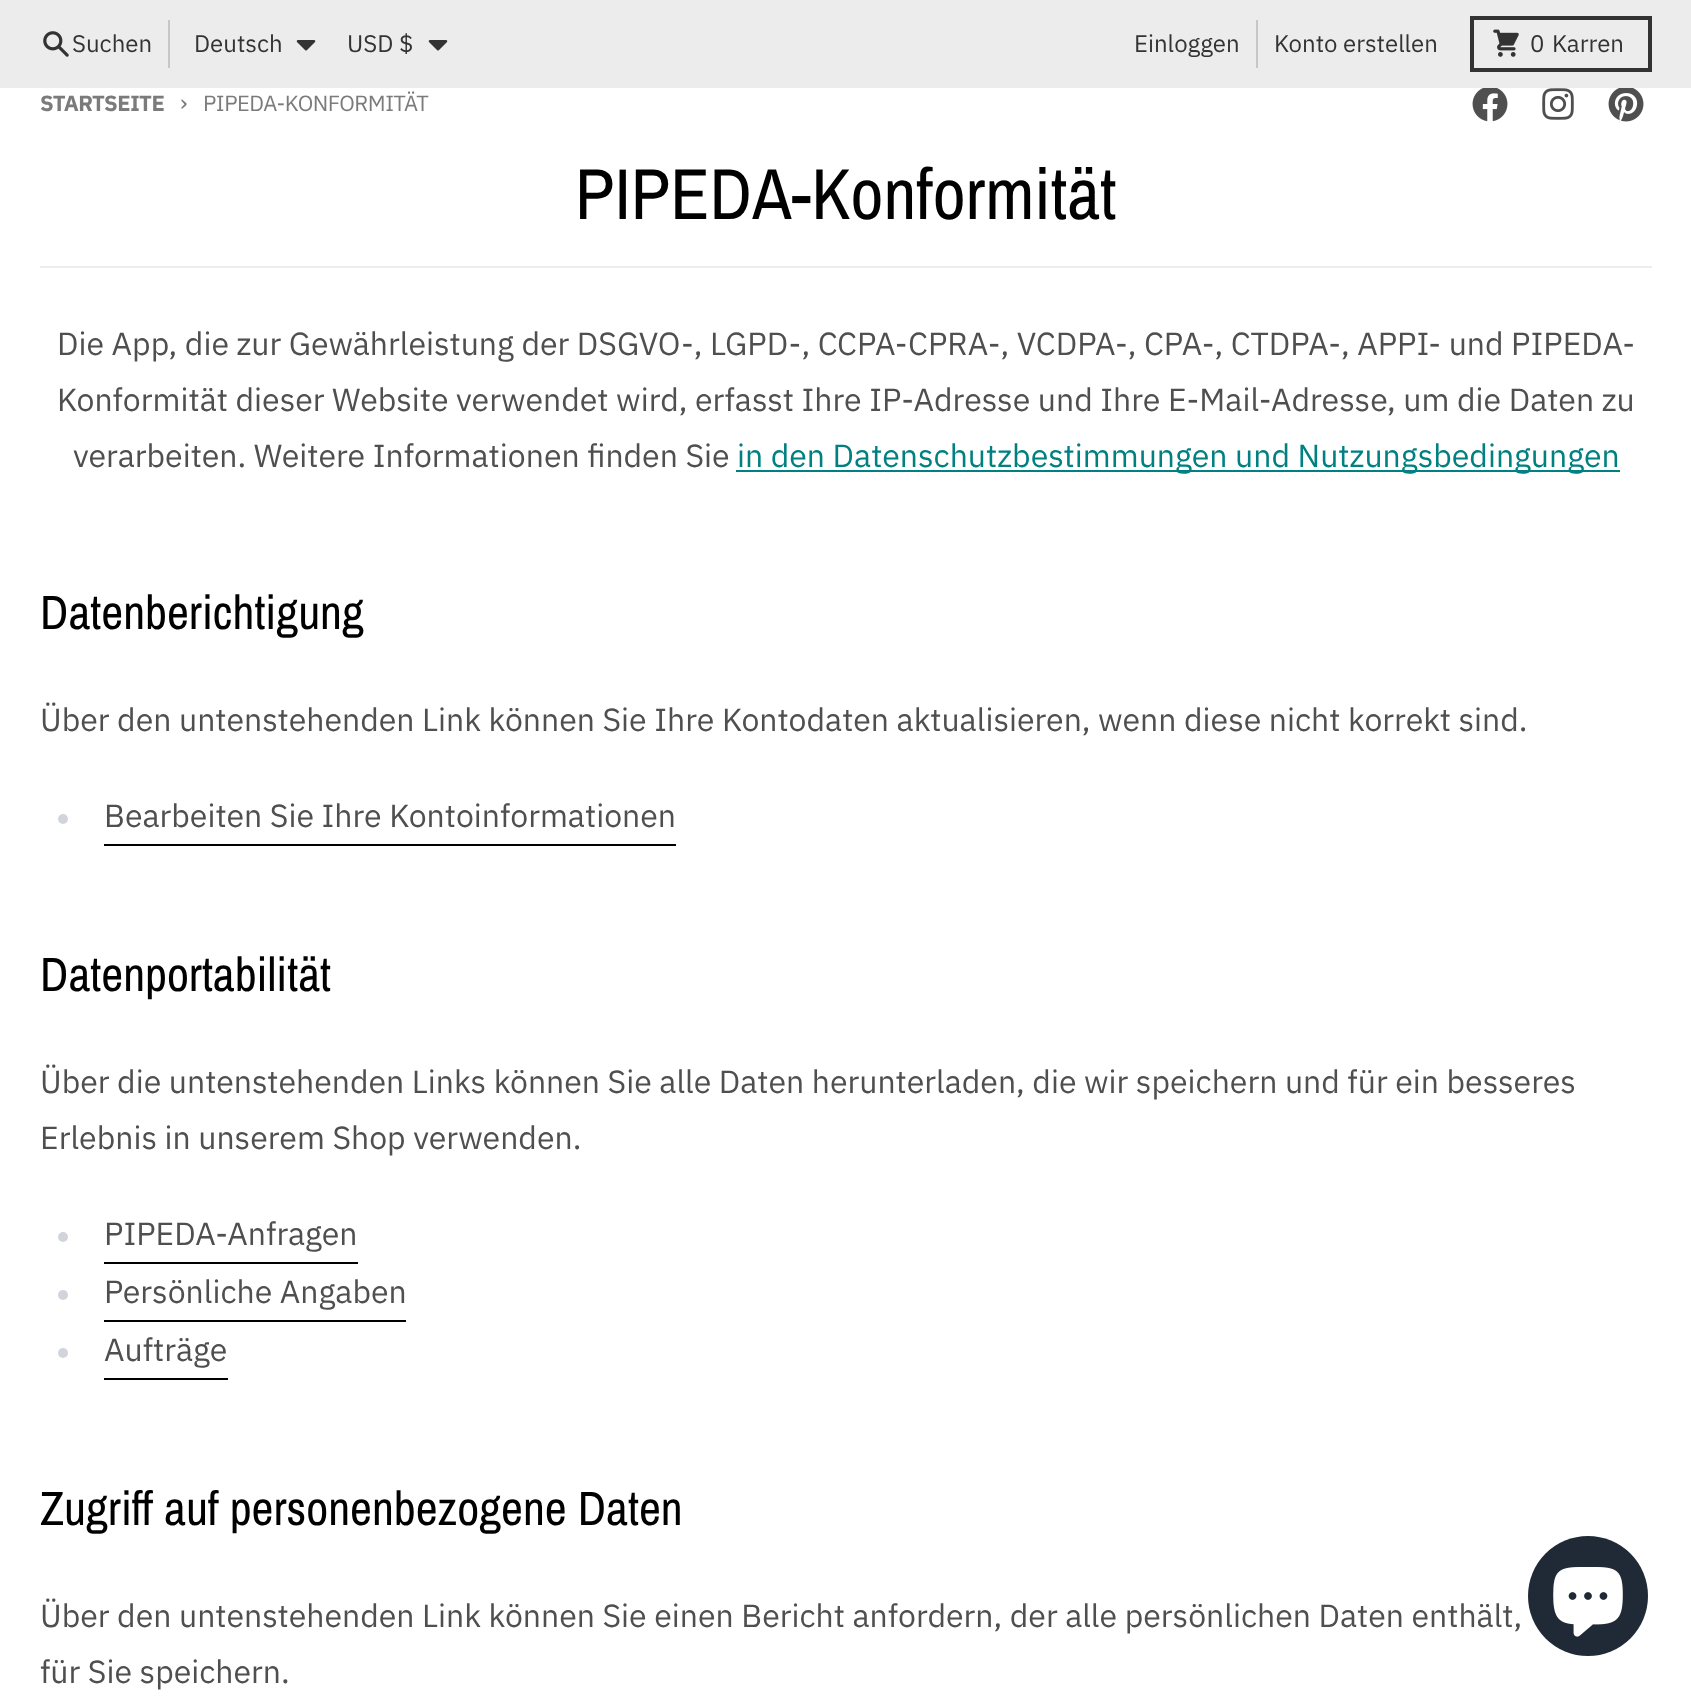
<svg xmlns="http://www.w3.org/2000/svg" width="1691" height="1697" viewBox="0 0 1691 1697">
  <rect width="100%" height="100%" fill="#ffffff"/>
  <rect x="0" y="0" width="1691" height="88" fill="#ececec"/>
  <image x="43" y="31" width="26" height="26" href="img1.png"/>
  <text x="72" y="52" font-family="IBM Plex Sans" font-size="24" fill="#333333">Suchen</text>
  <rect x="168" y="20" width="2" height="48" fill="#c7c7c7"/>
  <text x="194" y="52" font-family="IBM Plex Sans" font-size="24" fill="#333333">Deutsch</text>
  <image x="296" y="40" width="20" height="11" href="img2.png"/>
  <text x="347" y="52" font-family="IBM Plex Sans" font-size="24" fill="#333333">USD $</text>
  <image x="428" y="40" width="20" height="11" href="img2.png"/>
  <text x="1134" y="52" font-family="IBM Plex Sans" font-size="24" fill="#333333">Einloggen</text>
  <rect x="1256" y="20" width="2" height="48" fill="#c7c7c7"/>
  <text x="1274" y="52" font-family="IBM Plex Sans" font-size="24" fill="#333333">Konto erstellen</text>
  <rect x="1472" y="18" width="178" height="52" fill="none" stroke="#333333" stroke-width="4"/>
  <image x="1493" y="29" width="26" height="28" href="img3.png"/>
  <text x="1530" y="52" font-family="IBM Plex Sans" font-size="24" fill="#333333">0</text>
  <text x="1552" y="52" font-family="IBM Plex Sans" font-size="24" fill="#333333">Karren</text>
  <text x="40" y="111" font-family="IBM Plex Sans" font-size="22" font-weight="bold" letter-spacing="-0.5" fill="#7b7b7b">STARTSEITE</text>
  <text x="180" y="111" font-family="IBM Plex Sans" font-size="24" letter-spacing="-0.5" fill="#7b7b7b">›</text>
  <text x="203" y="111" font-family="IBM Plex Sans" font-size="22" letter-spacing="-0.5" fill="#7b7b7b">PIPEDA-KONFORMITÄT</text>
  <image x="1472" y="88" width="36" height="34" href="img4.png"/>
  <image x="1542" y="88" width="32" height="32" href="img5.png"/>
  <image x="1608" y="88" width="36" height="34" href="img6.png"/>
  <rect x="40" y="266" width="1612" height="2" fill="#ededed"/>
  <text x="575" y="219" font-family="Archivo Narrow" font-size="72" fill="#000000">PIPEDA-Konformität</text>
  <text x="57" y="355" font-family="IBM Plex Sans" font-size="32" fill="#4f4f4f">Die App, die zur Gewährleistung der DSGVO-, LGPD-, CCPA-CPRA-, VCDPA-, CPA-, CTDPA-, APPI- und PIPEDA-</text>
  <text x="57" y="411" font-family="IBM Plex Sans" font-size="32" fill="#4f4f4f">Konformität dieser Website verwendet wird, erfasst Ihre IP-Adresse und Ihre E-Mail-Adresse, um die Daten zu</text>
  <text x="73" y="467" font-family="IBM Plex Sans" font-size="32" fill="#4f4f4f">verarbeiten. Weitere Informationen finden Sie</text>
  <rect x="736" y="470" width="884" height="2" fill="#008080"/>
  <text x="737" y="467" font-family="IBM Plex Sans" font-size="32" fill="#008080">in den Datenschutzbestimmungen und Nutzungsbedingungen</text>
  <text x="40" y="629" font-family="Archivo Narrow" font-size="48" fill="#000000">Datenberichtigung</text>
  <text x="40" y="731" font-family="IBM Plex Sans" font-size="32" fill="#4f4f4f">Über den untenstehenden Link können Sie Ihre Kontodaten aktualisieren, wenn diese nicht korrekt sind.</text>
  <circle cx="63" cy="819" r="5" fill="#d1d5db"/>
  <rect x="104" y="844" width="572" height="2" fill="#000000"/>
  <text x="104" y="827" font-family="IBM Plex Sans" font-size="32" fill="#4f4f4f">Bearbeiten Sie Ihre Kontoinformationen</text>
  <text x="40" y="991" font-family="Archivo Narrow" font-size="48" fill="#000000">Datenportabilität</text>
  <text x="40" y="1093" font-family="IBM Plex Sans" font-size="32" fill="#4f4f4f">Über die untenstehenden Links können Sie alle Daten herunterladen, die wir speichern und für ein besseres</text>
  <text x="40" y="1149" font-family="IBM Plex Sans" font-size="32" fill="#4f4f4f">Erlebnis in unserem Shop verwenden.</text>
  <circle cx="63" cy="1237" r="5" fill="#d1d5db"/>
  <rect x="104" y="1262" width="254" height="2" fill="#000000"/>
  <text x="104" y="1245" font-family="IBM Plex Sans" font-size="32" fill="#4f4f4f">PIPEDA-Anfragen</text>
  <circle cx="63" cy="1295" r="5" fill="#d1d5db"/>
  <rect x="104" y="1320" width="302" height="2" fill="#000000"/>
  <text x="104" y="1303" font-family="IBM Plex Sans" font-size="32" fill="#4f4f4f">Persönliche Angaben</text>
  <circle cx="63" cy="1353" r="5" fill="#d1d5db"/>
  <rect x="104" y="1378" width="124" height="2" fill="#000000"/>
  <text x="104" y="1361" font-family="IBM Plex Sans" font-size="32" fill="#4f4f4f">Aufträge</text>
  <text x="40" y="1525" font-family="Archivo Narrow" font-size="48" fill="#000000">Zugriff auf personenbezogene Daten</text>
  <text x="40" y="1627" font-family="IBM Plex Sans" font-size="32" fill="#4f4f4f">Über den untenstehenden Link können Sie einen Bericht anfordern, der alle persönlichen Daten enthält,</text>
  <text x="40" y="1683" font-family="IBM Plex Sans" font-size="32" fill="#4f4f4f">für Sie speichern.</text>
  <circle cx="1588" cy="1596" r="60" fill="#202a36"/>
  <image x="1553" y="1567" width="70" height="70" href="img7.png"/>
</svg>
